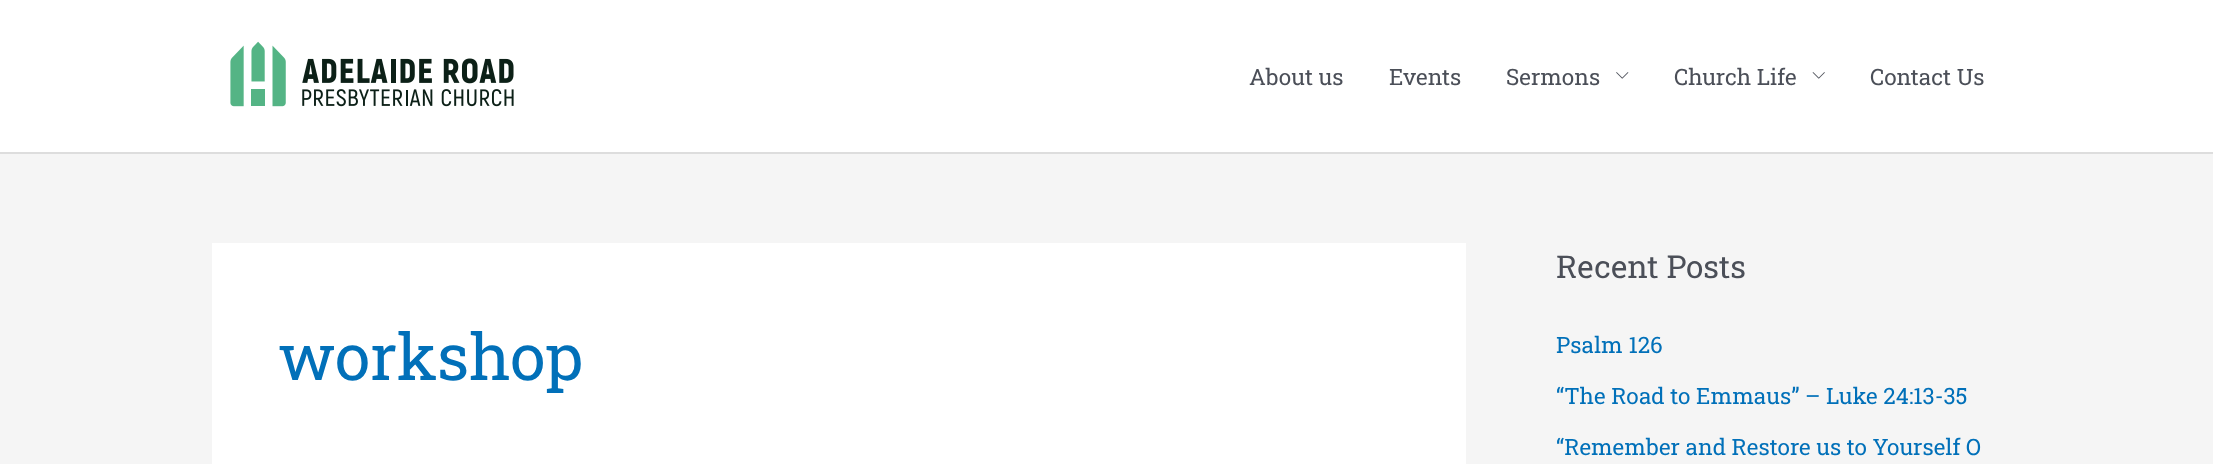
<svg xmlns="http://www.w3.org/2000/svg" width="2213" height="464" viewBox="0 0 2213 464">
  <rect width="100%" height="100%" fill="#f5f5f5"/>
  <rect x="0" y="0" width="2213" height="152" fill="#ffffff"/>
  <rect x="0" y="152" width="2213" height="2" fill="#dddddd"/>
  <image x="230" y="41" width="284" height="66" href="img1.png"/>
  <text x="1249" y="85" font-family="Roboto Slab" font-size="22.5" fill="#4b4f58">About us</text>
  <text x="1389" y="85" font-family="Roboto Slab" font-size="22.5" fill="#4b4f58">Events</text>
  <text x="1506" y="85" font-family="Roboto Slab" font-size="22.5" fill="#4b4f58">Sermons</text>
  <image x="1616" y="72" width="13" height="7" href="img2.png"/>
  <text x="1674" y="85" font-family="Roboto Slab" font-size="22.5" fill="#4b4f58">Church Life</text>
  <image x="1812" y="72" width="13" height="7" href="img3.png"/>
  <text x="1870" y="85" font-family="Roboto Slab" font-size="22.5" fill="#4b4f58">Contact Us</text>
  <rect x="212" y="243" width="1254" height="221" fill="#ffffff"/>
  <text x="278" y="380" font-family="Roboto Slab" font-size="64.5" fill="#0170b9">workshop</text>
  <text x="1556" y="278" font-family="Roboto Slab" font-size="31.5" fill="#4b4f58">Recent Posts</text>
  <text x="1556" y="353" font-family="Roboto Slab" font-size="22.5" fill="#0170b9">Psalm 126</text>
  <text x="1556" y="404" font-family="Roboto Slab" font-size="22.5" fill="#0170b9">“The Road to Emmaus” – Luke 24:13-35</text>
  <text x="1556" y="455" font-family="Roboto Slab" font-size="22.5" fill="#0170b9">“Remember and Restore us to Yourself O</text>
</svg>
